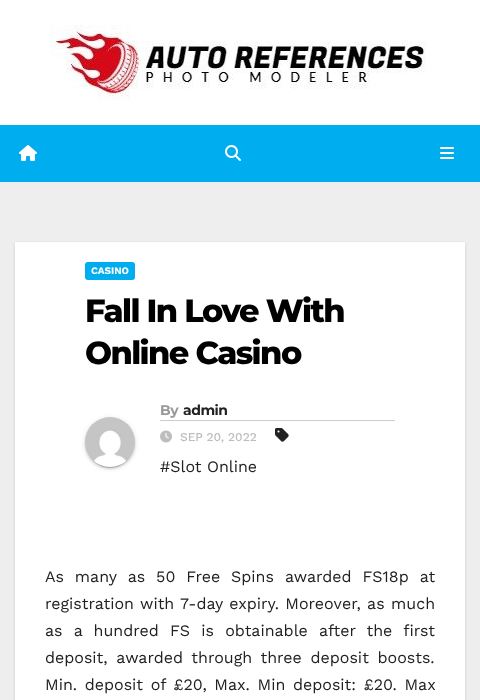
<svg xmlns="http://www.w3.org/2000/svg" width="480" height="700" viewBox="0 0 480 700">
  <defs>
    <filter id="blur1" x="-50%" y="-200%" width="200%" height="500%"><feGaussianBlur stdDeviation="1.5"/></filter>
    <filter id="blur2" x="-50%" y="-200%" width="200%" height="500%"><feGaussianBlur stdDeviation="2.5"/></filter>
    <filter id="blur3" x="-50%" y="-200%" width="200%" height="500%"><feGaussianBlur stdDeviation="0.5"/></filter>
    <filter id="blur4" x="-50%" y="-200%" width="200%" height="500%"><feGaussianBlur stdDeviation="1"/></filter>
  </defs>
  <rect width="100%" height="100%" fill="#eeeeee"/>
  <rect x="0" y="0" width="480" height="125" fill="#ffffff"/>
  <image x="50" y="25" width="376" height="75" href="img1.png"/>
  <rect x="0" y="125" width="480" height="57" fill="#00adef"/>
  <image x="19" y="145" width="18" height="16" href="img2.png"/>
  <image x="225" y="145" width="16" height="16" href="img3.png"/>
  <image x="440" y="147" width="14" height="12" href="img4.png"/>
  <rect x="15" y="243" width="450" height="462" fill="#000000" fill-opacity="0.15" filter="url(#blur1)"/>
  <rect x="15" y="242" width="450" height="458" fill="#ffffff"/>
  <rect x="85" y="262" width="50" height="18" rx="3" fill="#00adef"/>
  <text x="91" y="274" font-family="Work Sans" font-size="10" font-weight="bold" fill="#ffffff">CASINO</text>
  <text x="85" y="322" font-family="Montserrat" font-size="32" font-weight="800" letter-spacing="-1.6" fill="#000000">Fall In Love With</text>
  <text x="85" y="364" font-family="Montserrat" font-size="32" font-weight="800" letter-spacing="-1.6" fill="#000000">Online Casino</text>
  <rect x="85" y="418" width="50" height="50" rx="25" fill="#000000" fill-opacity="0.12" filter="url(#blur2)"/>
  <rect x="87" y="422" width="46" height="46" rx="23" fill="#000000" fill-opacity="0.2" filter="url(#blur3)"/>
  <rect x="85" y="419" width="50" height="50" rx="25" fill="#000000" fill-opacity="0.14" filter="url(#blur4)"/>
  <image x="85" y="417" width="50" height="50" href="img5.png"/>
  <rect x="160" y="420" width="235" height="1" fill="#cccccc"/>
  <text x="160" y="415" font-family="Montserrat" font-size="14" font-weight="bold" letter-spacing="-0.5" fill="#999999">By</text>
  <text x="183" y="415" font-family="Montserrat" font-size="14" font-weight="bold" letter-spacing="-0.5" fill="#212121">admin</text>
  <image x="160" y="430" width="12" height="13" href="img6.png"/>
  <text x="180" y="441" font-family="Work Sans" font-size="12" font-weight="500" fill="#bdbdbd">SEP 20, 2022</text>
  <image x="275" y="428" width="14" height="14" href="img7.png"/>
  <text x="160" y="472" font-family="Work Sans" font-size="16" fill="#212121">#Slot Online</text>
  <text x="45" y="582" word-spacing="5.5" font-family="Work Sans" font-size="16" fill="#212121">As many as 50 Free Spins awarded FS18p at</text>
  <text x="45" y="609" word-spacing="1" font-family="Work Sans" font-size="16" fill="#212121">registration with 7-day expiry. Moreover, as much</text>
  <text x="45" y="636" word-spacing="5.75" font-family="Work Sans" font-size="16" fill="#212121">as a hundred FS is obtainable after the first</text>
  <text x="45" y="663" word-spacing="3.25" font-family="Work Sans" font-size="16" fill="#212121">deposit, awarded through three deposit boosts.</text>
  <text x="45" y="690" word-spacing="2.25" font-family="Work Sans" font-size="16" fill="#212121">Min. deposit of £20, Max. Min deposit: £20. Max</text>
</svg>
